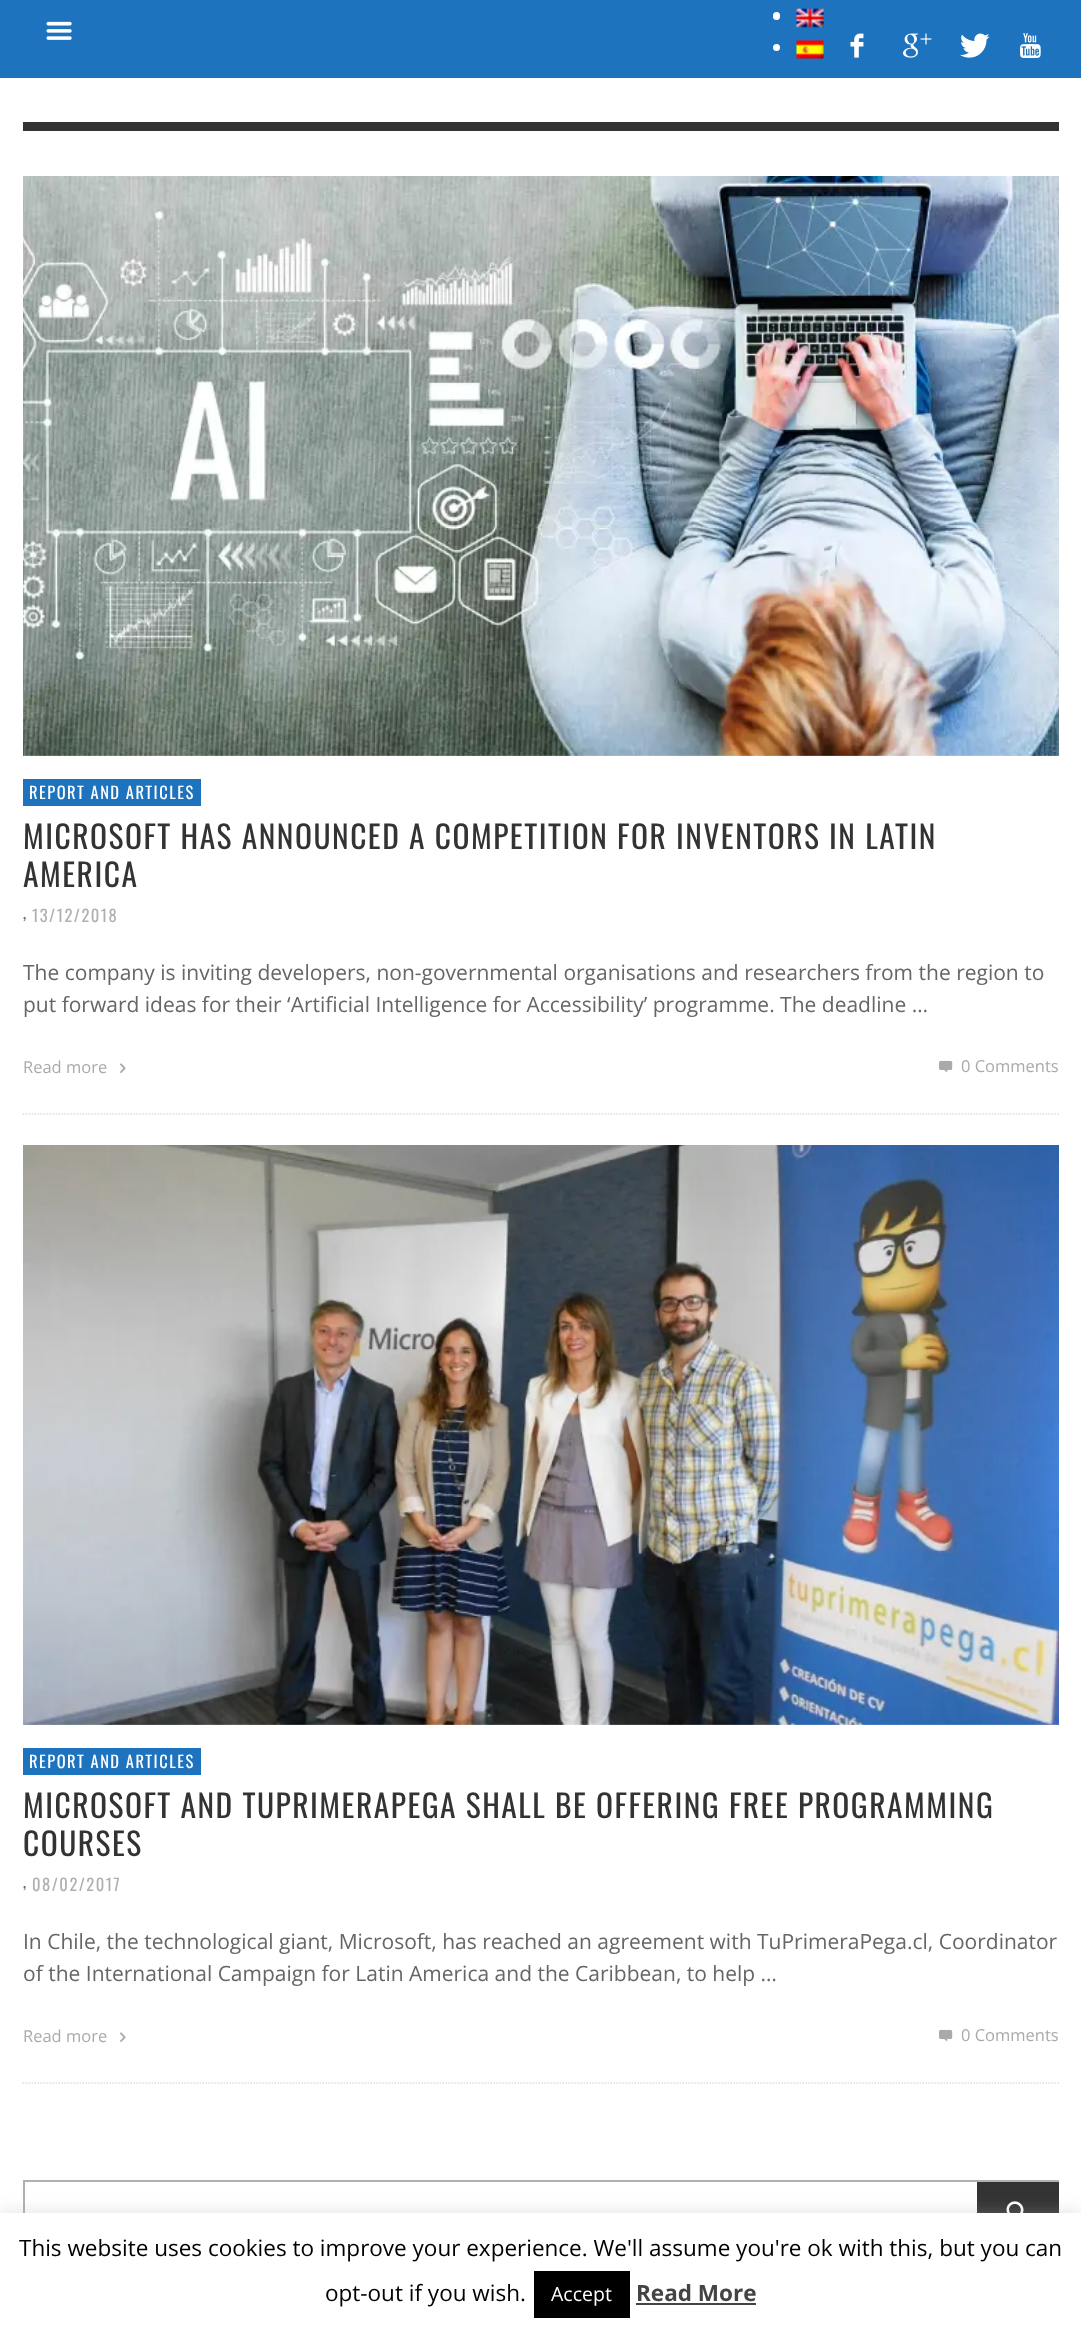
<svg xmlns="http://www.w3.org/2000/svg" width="1081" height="2335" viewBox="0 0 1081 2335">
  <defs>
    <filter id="blur1" x="-50%" y="-200%" width="200%" height="500%"><feGaussianBlur stdDeviation="7.5"/></filter>
  </defs>
  <rect width="100%" height="100%" fill="#ffffff"/>
  <rect x="0" y="0" width="1081" height="78" fill="#1e73be"/>
  <image x="46" y="21" width="26" height="19" href="img1.png"/>
  <rect x="773" y="12" width="7" height="8" rx="3.5" fill="#ffffff"/>
  <image x="796" y="8" width="28" height="20" href="img2.png"/>
  <circle cx="776.5" cy="47.5" r="3.5" fill="#ffffff"/>
  <image x="796" y="40" width="28" height="19" href="img3.png"/>
  <image x="850" y="33" width="14" height="25" href="img4.png"/>
  <image x="903" y="33" width="29" height="25" href="img5.png"/>
  <image x="960" y="33" width="30" height="25" href="img6.png"/>
  <image x="1020" y="33" width="21" height="25" href="img7.png"/>
  <rect x="23" y="122" width="1036" height="9" fill="#333333"/>
  <path d="M22.5 1114H1059" fill="none" stroke="#dddddd" stroke-width="1.5" stroke-dasharray="1.5 1.5"/>
  <image x="23" y="176" width="1036" height="580" href="img8.png"/>
  <rect x="23" y="779" width="178" height="27" fill="#1e73be"/>
  <text x="29" y="799" font-family="Oswald" font-size="16.5" letter-spacing="1.5" fill="#ffffff">REPORT AND ARTICLES</text>
  <text x="23" y="849" font-family="Oswald" font-size="31.5" letter-spacing="1.5" fill="#333333">MICROSOFT HAS ANNOUNCED A COMPETITION FOR INVENTORS IN LATIN</text>
  <text x="23" y="887" font-family="Oswald" font-size="31.5" letter-spacing="1.5" fill="#333333">AMERICA</text>
  <text x="23" y="919" font-family="Oswald" font-size="16.5" letter-spacing="1.5" fill="#666666">,</text>
  <text x="32" y="922" font-family="Oswald" font-size="16.5" letter-spacing="1.5" fill="#b0b0b0">13/12/2018</text>
  <text x="23" y="980" font-family="Open Sans" font-size="21" fill="#666666">The company is inviting developers, non-governmental organisations and researchers from the region to</text>
  <text x="23" y="1012" font-family="Open Sans" font-size="21" fill="#666666">put forward ideas for their ‘Artificial Intelligence for Accessibility’ programme. The deadline …</text>
  <text x="23" y="1073" font-family="Open Sans" font-size="16.5" fill="#aaaaaa">Read more</text>
  <image x="120" y="1063" width="6" height="10" href="img9.png"/>
  <image x="939" y="1060" width="14" height="13" href="img10.png"/>
  <text x="961" y="1072" font-family="Open Sans" font-size="16.5" fill="#aaaaaa">0 Comments</text>
  <path d="M22.5 2083H1059" fill="none" stroke="#dddddd" stroke-width="1.5" stroke-dasharray="1.5 1.5"/>
  <image x="23" y="1145" width="1036" height="580" href="img11.png"/>
  <rect x="23" y="1748" width="178" height="27" fill="#1e73be"/>
  <text x="29" y="1768" font-family="Oswald" font-size="16.5" letter-spacing="1.5" fill="#ffffff">REPORT AND ARTICLES</text>
  <text x="23" y="1818" font-family="Oswald" font-size="31.5" letter-spacing="1.5" fill="#333333">MICROSOFT AND TUPRIMERAPEGA SHALL BE OFFERING FREE PROGRAMMING</text>
  <text x="23" y="1856" font-family="Oswald" font-size="31.5" letter-spacing="1.5" fill="#333333">COURSES</text>
  <text x="23" y="1888" font-family="Oswald" font-size="16.5" letter-spacing="1.5" fill="#666666">,</text>
  <text x="32" y="1891" font-family="Oswald" font-size="16.5" letter-spacing="1.5" fill="#b0b0b0">08/02/2017</text>
  <text x="23" y="1949" font-family="Open Sans" font-size="21" fill="#666666">In Chile, the technological giant, Microsoft, has reached an agreement with TuPrimeraPega.cl, Coordinator</text>
  <text x="23" y="1981" font-family="Open Sans" font-size="21" fill="#666666">of the International Campaign for Latin America and the Caribbean, to help …</text>
  <text x="23" y="2042" font-family="Open Sans" font-size="16.5" fill="#aaaaaa">Read more</text>
  <image x="120" y="2032" width="6" height="10" href="img9.png"/>
  <image x="939" y="2029" width="14" height="13" href="img10.png"/>
  <text x="961" y="2041" font-family="Open Sans" font-size="16.5" fill="#aaaaaa">0 Comments</text>
  <rect x="24" y="2181" width="1034" height="62" fill="none" stroke="#b0b0b0" stroke-width="2"/>
  <rect x="977" y="2182" width="82" height="31" fill="#333333"/>
  <image x="1006" y="2201" width="18" height="12" href="img12.png"/>
  <rect x="0" y="2211" width="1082" height="123" fill="#acabab" fill-opacity="0.3" filter="url(#blur1)"/>
  <rect x="0" y="2213" width="1081" height="122" fill="#ffffff"/>
  <text x="19" y="2256" font-family="Open Sans" font-size="22.5" fill="#000000">This website uses cookies to improve your experience. We'll assume you're ok with this, but you can</text>
  <text x="325" y="2301" font-family="Open Sans" font-size="22.5" fill="#000000">opt-out if you wish.</text>
  <rect x="534" y="2271" width="96" height="47" fill="#000000"/>
  <text x="551" y="2301" font-family="Open Sans" font-size="19.5" fill="#ffffff">Accept</text>
  <text x="636" y="2301" font-family="Open Sans" font-size="22.5" font-weight="bold" fill="#444444">Read More</text>
  <rect x="636" y="2303" width="120" height="2" fill="#444444"/>
</svg>
